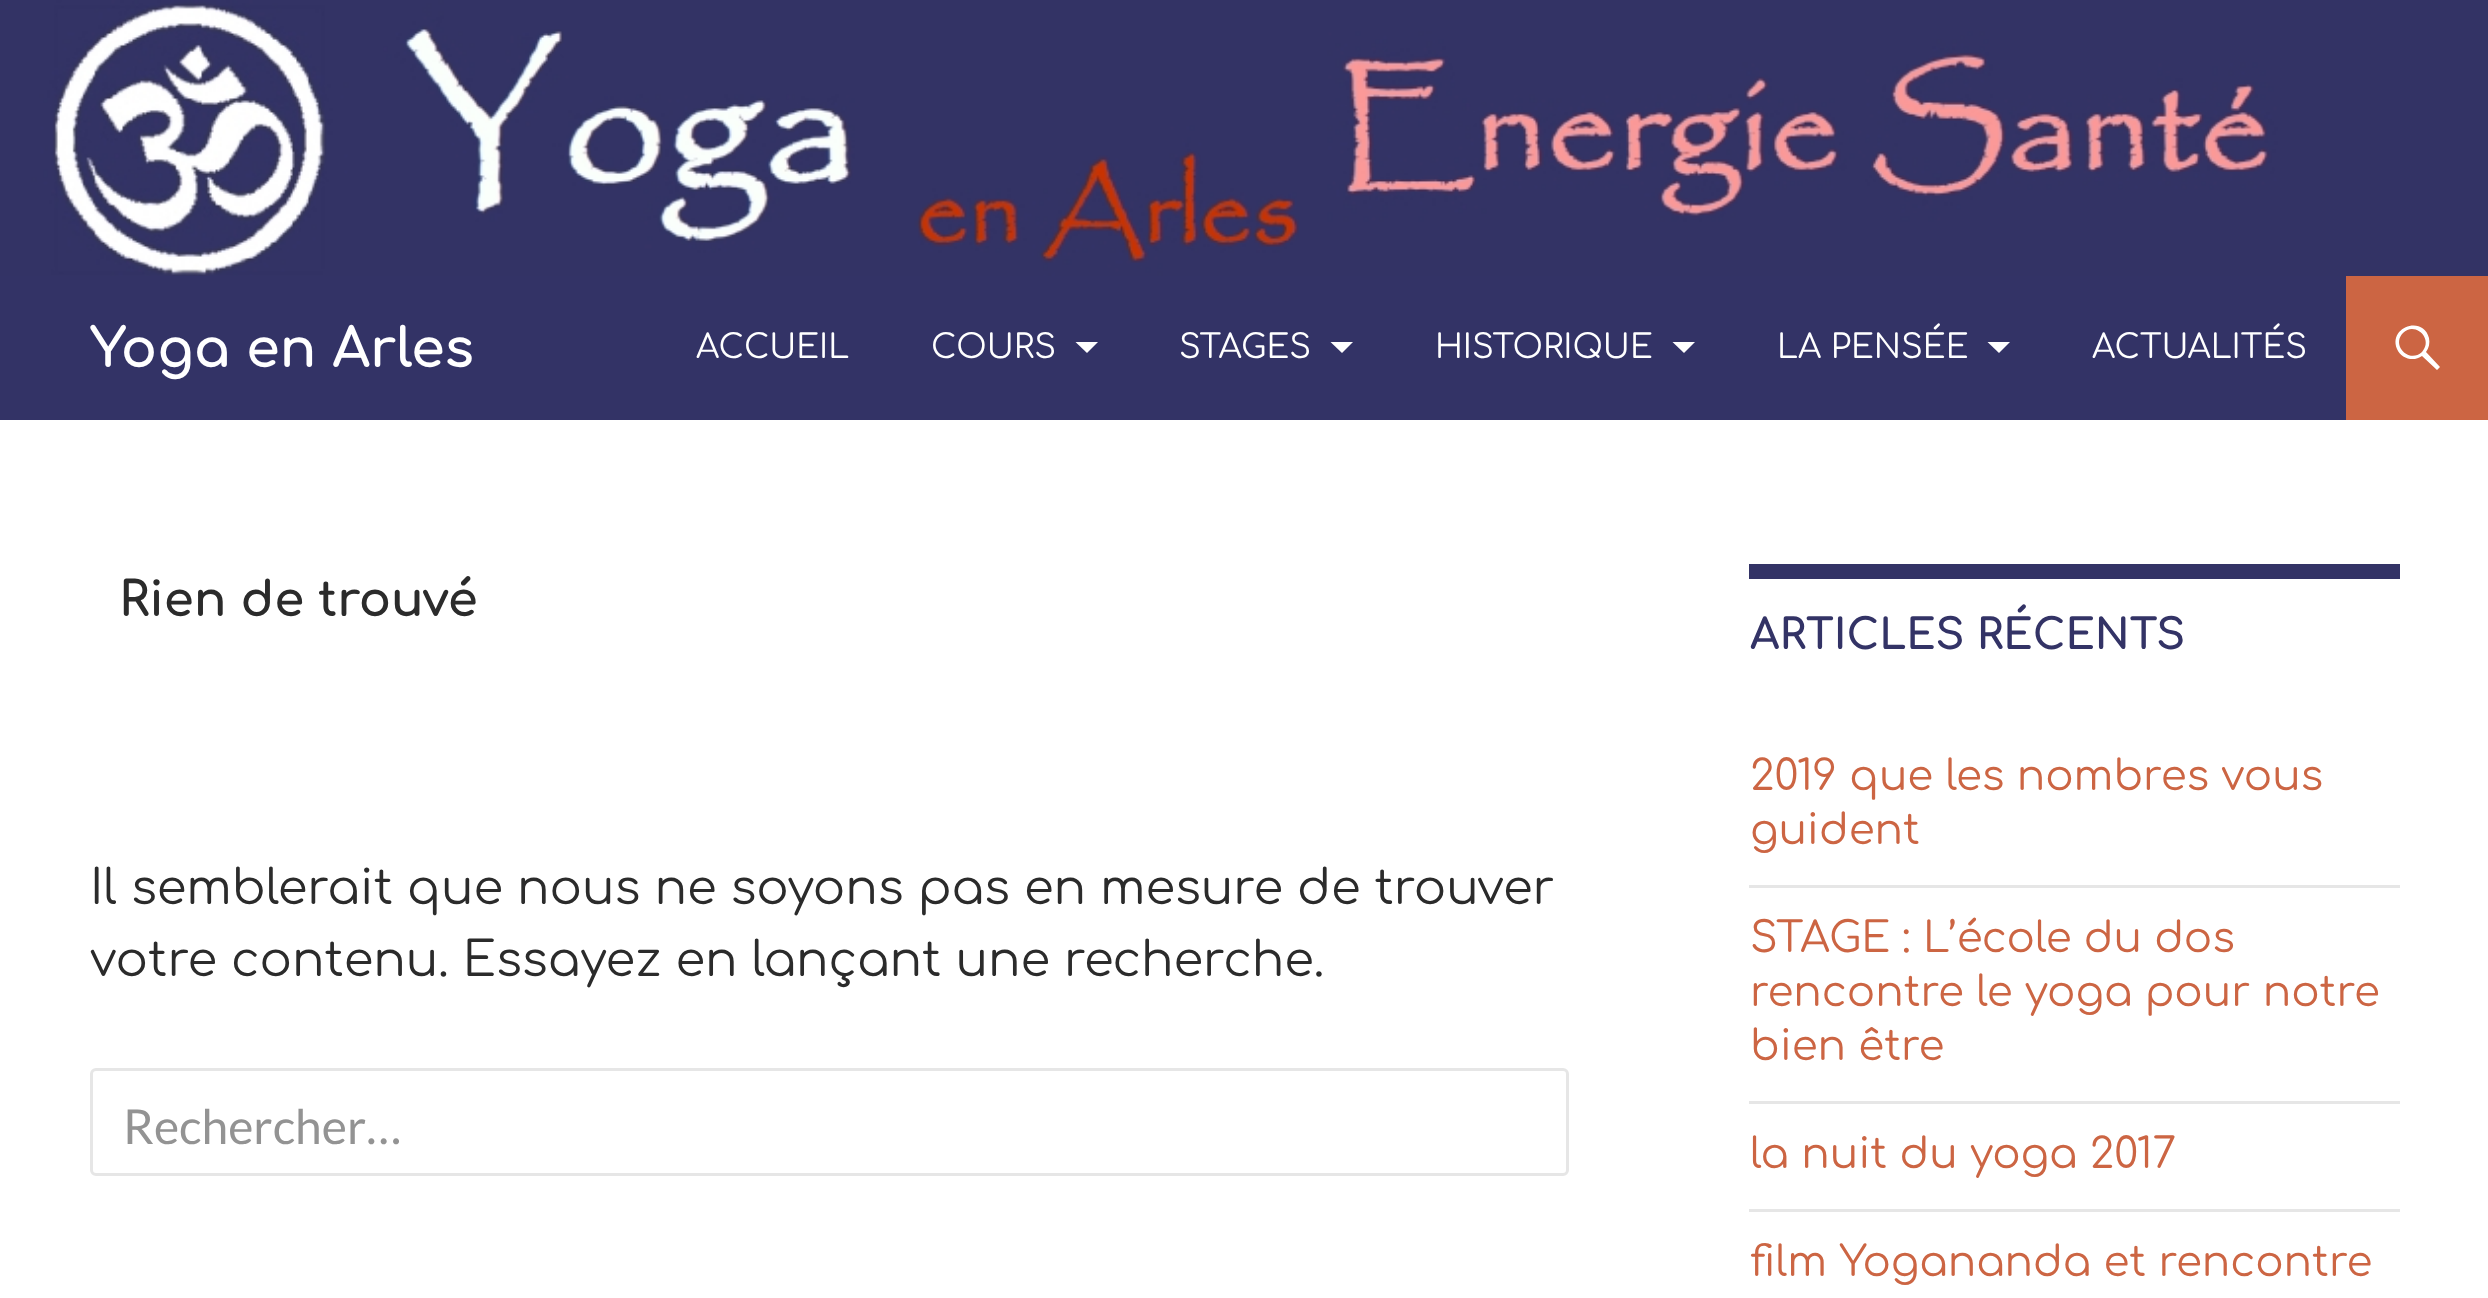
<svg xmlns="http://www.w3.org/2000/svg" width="2488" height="1298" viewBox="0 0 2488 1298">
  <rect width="100%" height="100%" fill="#ffffff"/>
  <image x="0" y="0" width="2488" height="276" href="img1.png"/>
  <rect x="0" y="276" width="2346" height="144" fill="#333366"/>
  <text x="90" y="367" font-family="Comfortaa" font-size="54" font-weight="bold" fill="#ffffff">Yoga en Arles</text>
  <text x="696" y="358" font-family="Comfortaa" font-size="33" fill="#ffffff">ACCUEIL</text>
  <text x="931" y="358" font-family="Comfortaa" font-size="33" fill="#ffffff">COURS</text>
  <path d="M1075.5 342L1087 353L1098 342Z" fill="#ffffff"/>
  <text x="1179" y="358" font-family="Comfortaa" font-size="33" fill="#ffffff">STAGES</text>
  <path d="M1330.5 342L1342 353L1353 342Z" fill="#ffffff"/>
  <text x="1435" y="358" font-family="Comfortaa" font-size="33" fill="#ffffff">HISTORIQUE</text>
  <path d="M1672.5 342L1684 353L1695 342Z" fill="#ffffff"/>
  <text x="1777" y="358" font-family="Comfortaa" font-size="33" fill="#ffffff">LA PENSÉE</text>
  <path d="M1987.5 342L1999 353L2010 342Z" fill="#ffffff"/>
  <text x="2092" y="358" font-family="Comfortaa" font-size="33" fill="#ffffff">ACTUALITÉS</text>
  <rect x="2346" y="276" width="142" height="144" fill="#cc6543"/>
  <path d="M2397 349C2388 327 2423 315 2429 338C2430 343 2429 348 2426 352L2440 367L2437 370L2422 356C2414 362 2401 359 2397 349ZM2403 333C2391 345 2409 364 2422 352C2434 339 2415 321 2403 333Z" fill="#ffffff"/>
  <text x="119" y="616" font-family="Comfortaa" font-size="48" font-weight="bold" fill="#2b2b2b">Rien de trouvé</text>
  <text x="90" y="904" font-family="Comfortaa" font-size="48" fill="#2b2b2b">Il semblerait que nous ne soyons pas en mesure de trouver</text>
  <text x="90" y="976" font-family="Comfortaa" font-size="48" fill="#2b2b2b">votre contenu. Essayez en lançant une recherche.</text>
  <rect x="91.5" y="1069.5" width="1476" height="105" rx="4.5" fill="none" stroke="#e6e6e6" stroke-width="3"/>
  <text x="123" y="1144" font-family="Lato" font-size="48" fill="#939393">Rechercher…</text>
  <rect x="1749" y="564" width="651" height="15" fill="#333366"/>
  <text x="1750" y="649" font-family="Comfortaa" font-size="42" font-weight="bold" fill="#333366">ARTICLES RÉCENTS</text>
  <text x="1750" y="790" font-family="Comfortaa" font-size="42" fill="#cc6543">2019 que les nombres vous</text>
  <text x="1750" y="844" font-family="Comfortaa" font-size="42" fill="#cc6543">guident</text>
  <rect x="1749" y="885" width="651" height="3" fill="#e6e6e6"/>
  <text x="1750" y="952" font-family="Comfortaa" font-size="42" fill="#cc6543">STAGE : L’école du dos</text>
  <text x="1750" y="1006" font-family="Comfortaa" font-size="42" fill="#cc6543">rencontre le yoga pour notre</text>
  <text x="1750" y="1060" font-family="Comfortaa" font-size="42" fill="#cc6543">bien être</text>
  <rect x="1749" y="1101" width="651" height="3" fill="#e6e6e6"/>
  <text x="1750" y="1168" font-family="Comfortaa" font-size="42" fill="#cc6543">la nuit du yoga 2017</text>
  <rect x="1749" y="1209" width="651" height="3" fill="#e6e6e6"/>
  <text x="1750" y="1276" font-family="Comfortaa" font-size="42" fill="#cc6543">film Yogananda et rencontre</text>
</svg>
